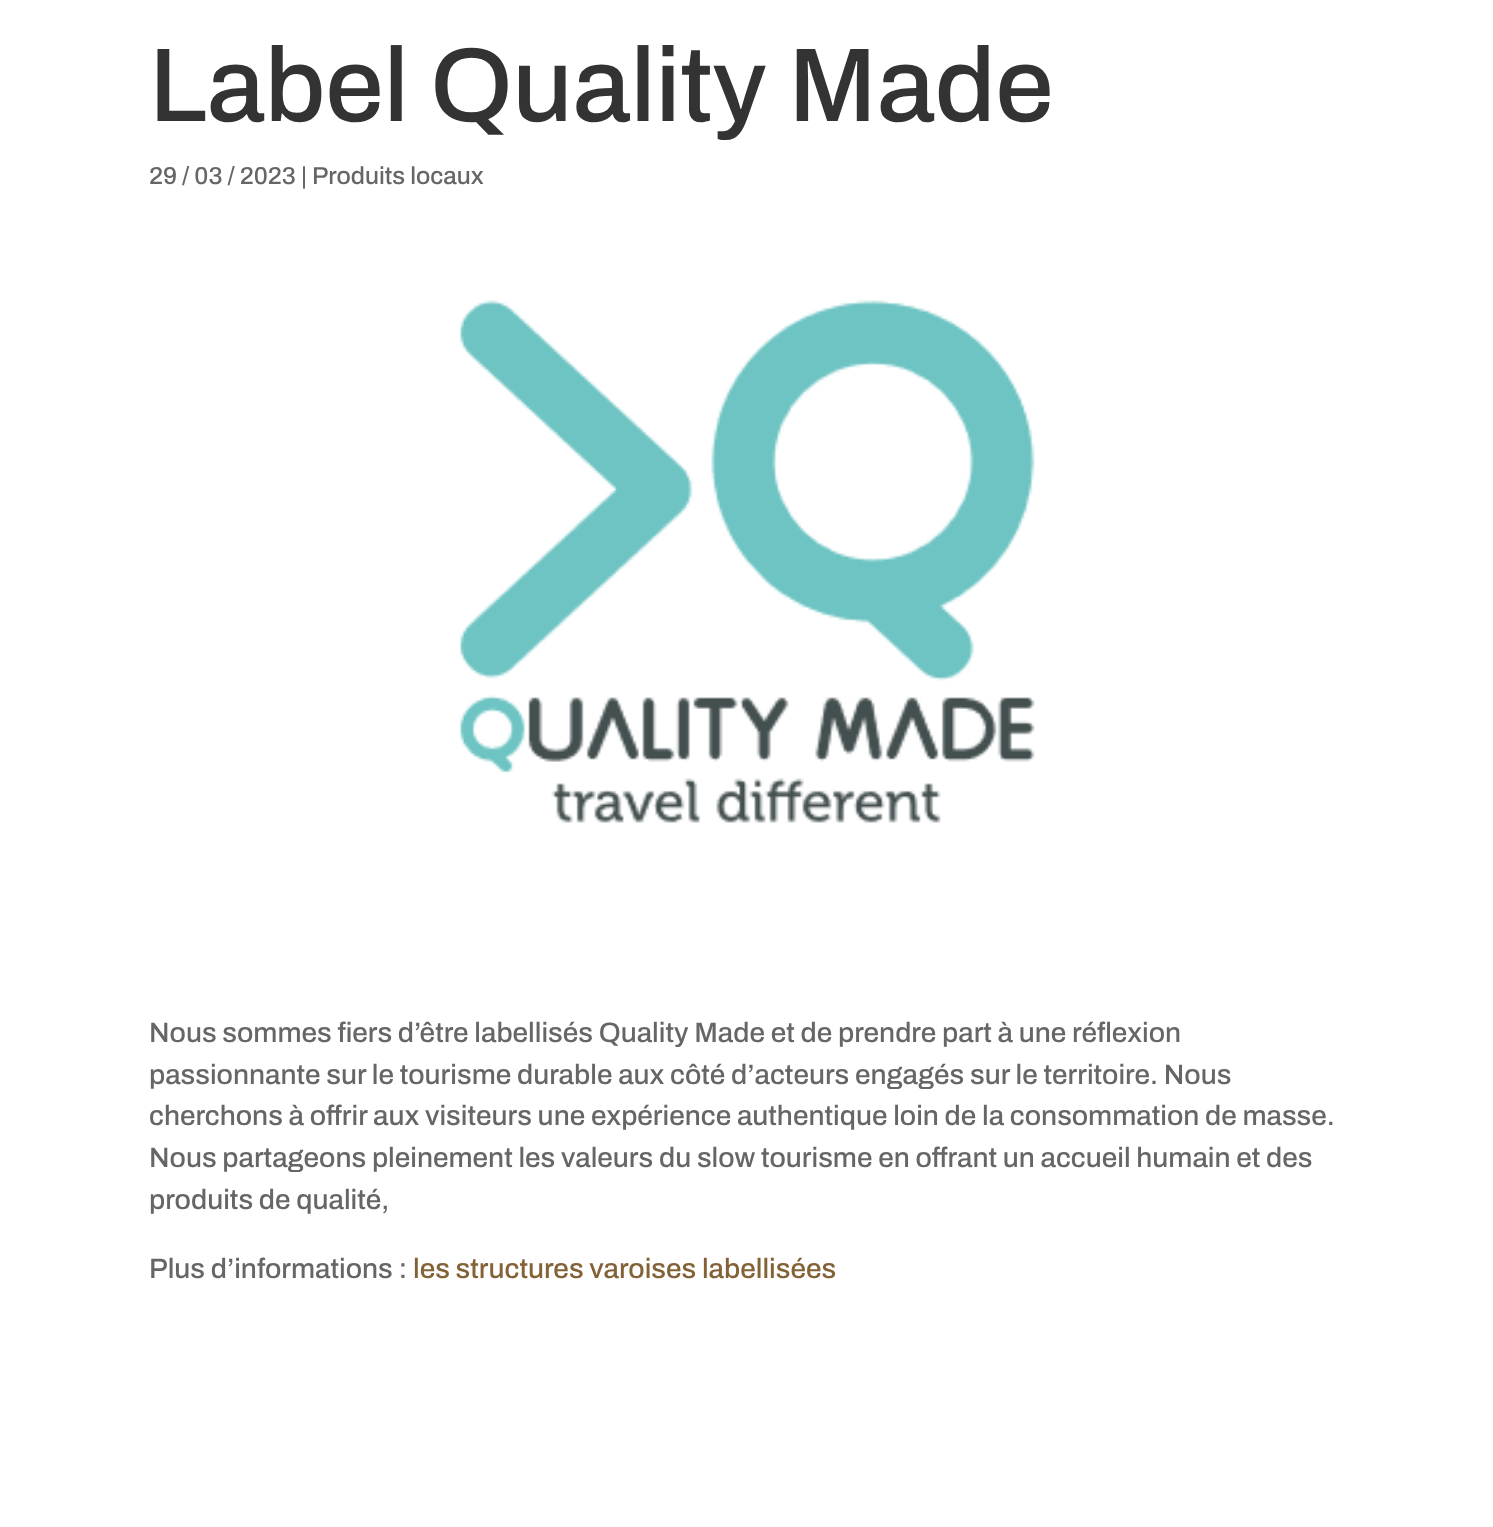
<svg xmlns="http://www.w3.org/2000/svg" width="1493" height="1527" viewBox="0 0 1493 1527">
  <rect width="100%" height="100%" fill="#ffffff"/>
  <text x="149" y="121" font-family="Archivo" font-size="105" font-weight="500" fill="#333333">Label Quality Made</text>
  <text x="149" y="184" font-family="Archivo" font-size="24.5" font-weight="500" fill="#666666">29 / 03 / 2023 | Produits locaux</text>
  <image x="460" y="300" width="575" height="523" href="img1.png"/>
  <text x="149" y="1042" font-family="Archivo" font-size="28" font-weight="500" fill="#666666">Nous sommes fiers d’être labellisés Quality Made et de prendre part à une réflexion</text>
  <text x="149" y="1084" font-family="Archivo" font-size="28" font-weight="500" fill="#666666">passionnante sur le tourisme durable aux côté d’acteurs engagés sur le territoire. Nous</text>
  <text x="149" y="1125" font-family="Archivo" font-size="28" font-weight="500" fill="#666666">cherchons à offrir aux visiteurs une expérience authentique loin de la consommation de masse.</text>
  <text x="149" y="1167" font-family="Archivo" font-size="28" font-weight="500" fill="#666666">Nous partageons pleinement les valeurs du slow tourisme en offrant un accueil humain et des</text>
  <text x="149" y="1209" font-family="Archivo" font-size="28" font-weight="500" fill="#666666">produits de qualité,</text>
  <text x="149" y="1278" font-family="Archivo" font-size="28" font-weight="500" fill="#666666">Plus d’informations :</text>
  <text x="413" y="1278" font-family="Archivo" font-size="28" font-weight="500" fill="#836237">les structures varoises labellisées</text>
</svg>
